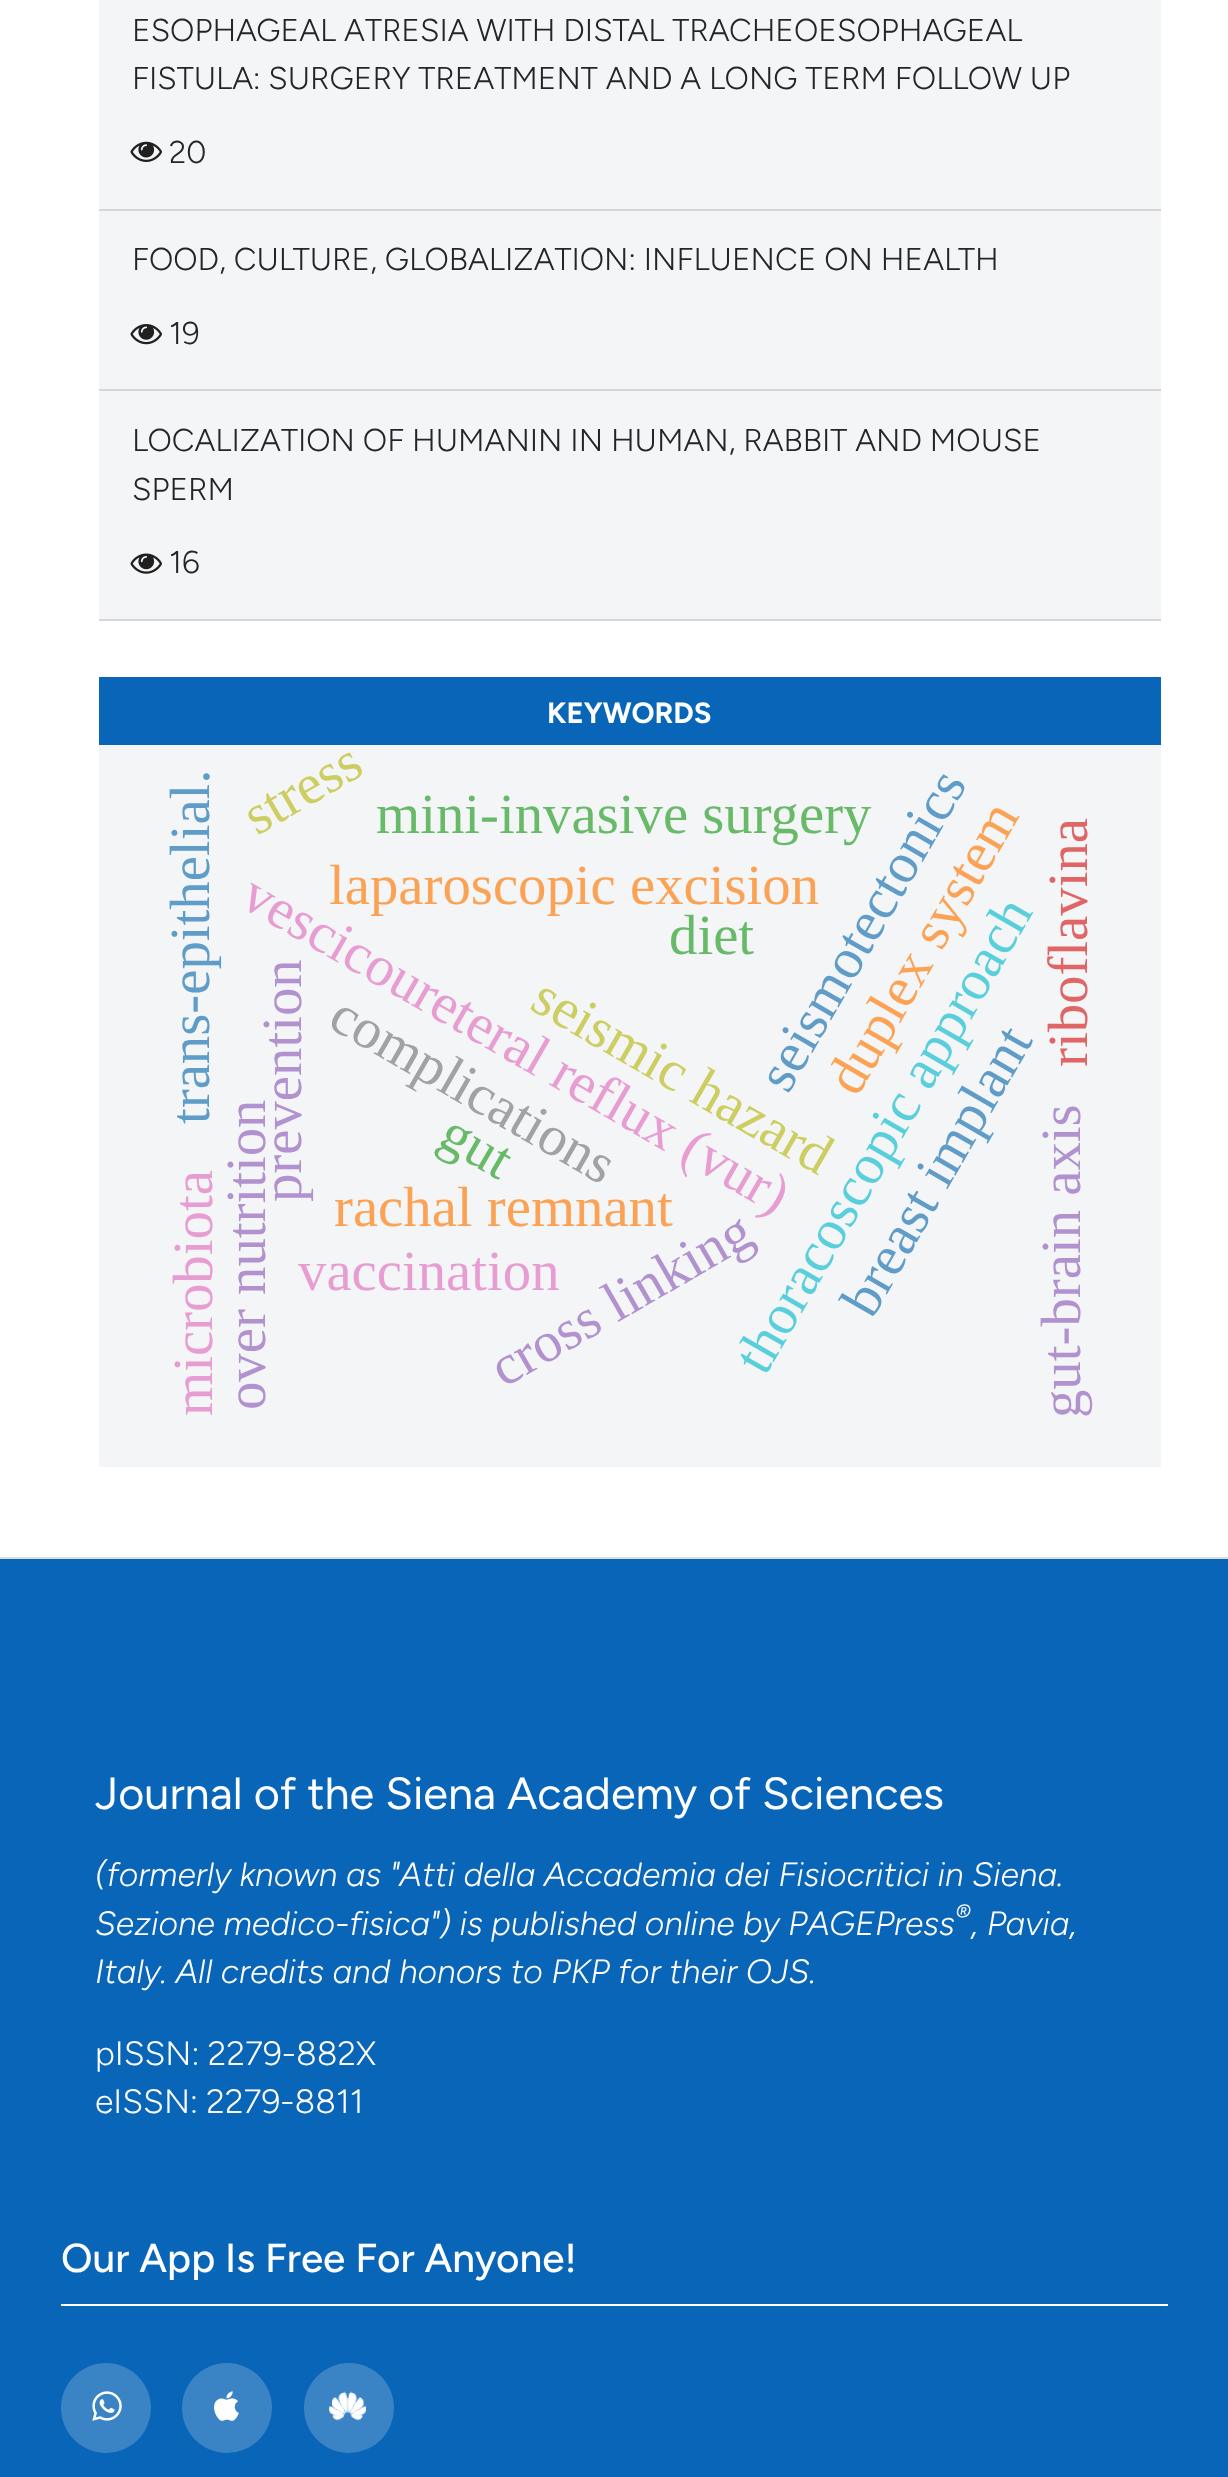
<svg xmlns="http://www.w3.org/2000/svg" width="1228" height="2477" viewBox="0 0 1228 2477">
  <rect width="100%" height="100%" fill="#ffffff"/>
  <rect x="99" y="0" width="1062" height="619" fill="#f4f5f7"/>
  <rect x="99" y="209" width="1062" height="2" fill="#d6d6d8"/>
  <text x="132" y="41" font-family="Figtree" font-size="31.5" font-weight="300" fill="#252525">ESOPHAGEAL ATRESIA WITH DISTAL TRACHEOESOPHAGEAL</text>
  <text x="132" y="89" font-family="Figtree" font-size="31.5" font-weight="300" fill="#252525">FISTULA: SURGERY TREATMENT AND A LONG TERM FOLLOW UP</text>
  <image x="130" y="141" width="32" height="21" href="img1.png"/>
  <text x="169" y="163" font-family="Figtree" font-size="31.5" font-weight="300" fill="#252525">20</text>
  <rect x="99" y="389" width="1062" height="2" fill="#d6d6d8"/>
  <text x="132" y="270" font-family="Figtree" font-size="31.5" font-weight="300" fill="#252525">FOOD, CULTURE, GLOBALIZATION: INFLUENCE ON HEALTH</text>
  <image x="130" y="324" width="32" height="21" href="img2.png"/>
  <text x="169" y="344" font-family="Figtree" font-size="31.5" font-weight="300" fill="#252525">19</text>
  <rect x="99" y="619" width="1062" height="2" fill="#d6d6d8"/>
  <text x="132" y="451" font-family="Figtree" font-size="31.5" font-weight="300" fill="#252525">LOCALIZATION OF HUMANIN IN HUMAN, RABBIT AND MOUSE</text>
  <text x="132" y="500" font-family="Figtree" font-size="31.5" font-weight="300" fill="#252525">SPERM</text>
  <image x="130" y="553" width="32" height="21" href="img3.png"/>
  <text x="169" y="573" font-family="Figtree" font-size="31.5" font-weight="300" fill="#252525">16</text>
  <rect x="99" y="677" width="1062" height="68" fill="#0965b8"/>
  <text x="547" y="723" font-family="Figtree" font-size="29.25" font-weight="bold" fill="#fefefe">KEYWORDS</text>
  <rect x="99" y="745" width="1062" height="722" fill="#f4f5f7"/>
  <text x="209" y="1124" transform="rotate(-90 209 1124)" font-family="Liberation Serif" font-size="56.75" fill="#5f9dc8">trans-epithelial.</text>
  <text x="257" y="836" transform="rotate(-30 257 836)" font-family="Liberation Serif" font-size="56.75" fill="#cdce62">stress</text>
  <text x="238" y="905" transform="rotate(30 238 905)" font-family="Liberation Serif" font-size="56.75" fill="#e89dd2">vescicoureteral reflux (vur)</text>
  <text x="765" y="1377" transform="rotate(-60 765 1377)" font-family="Liberation Serif" font-size="56.75" fill="#59cfdb">thoracoscopic approach</text>
  <text x="528" y="1008" transform="rotate(30 528 1008)" font-family="Liberation Serif" font-size="56.75" fill="#cdce62">seismic hazard</text>
  <text x="788" y="1095" transform="rotate(-60 788 1095)" font-family="Liberation Serif" font-size="56.75" fill="#5f9dc8">seismotectonics</text>
  <text x="857" y="1098" transform="rotate(-60 857 1098)" font-family="Liberation Serif" font-size="56.75" fill="#fca254">duplex system</text>
  <text x="376" y="833" font-family="Liberation Serif" font-size="56.75" fill="#68ba69">mini-invasive surgery</text>
  <text x="1087" y="1067" transform="rotate(-90 1087 1067)" font-family="Liberation Serif" font-size="56.75" fill="#df6566">riboflavina</text>
  <text x="329" y="904" font-family="Liberation Serif" font-size="56.75" fill="#fca254">laparoscopic excision</text>
  <text x="669" y="954" font-family="Liberation Serif" font-size="56.75" fill="#68ba69">diet</text>
  <text x="301" y="1202" transform="rotate(-90 301 1202)" font-family="Liberation Serif" font-size="56.75" fill="#b192ce">prevention</text>
  <text x="265" y="1410" transform="rotate(-90 265 1410)" font-family="Liberation Serif" font-size="56.75" fill="#b192ce">over nutrition</text>
  <text x="326" y="1026" transform="rotate(30 326 1026)" font-family="Liberation Serif" font-size="56.75" fill="#a2a2a3">complications</text>
  <text x="872" y="1320" transform="rotate(-60 872 1320)" font-family="Liberation Serif" font-size="56.75" fill="#5f9dc8">breast implant</text>
  <text x="1080" y="1418" transform="rotate(-90 1080 1418)" font-family="Liberation Serif" font-size="56.75" fill="#b192ce">gut-brain axis</text>
  <text x="436" y="1144" transform="rotate(30 436 1144)" font-family="Liberation Serif" font-size="56.75" fill="#68ba69">gut</text>
  <text x="212" y="1416" transform="rotate(-90 212 1416)" font-family="Liberation Serif" font-size="56.75" fill="#e89dd2">microbiota</text>
  <text x="334" y="1226" font-family="Liberation Serif" font-size="56.75" fill="#fca254">rachal remnant</text>
  <text x="504" y="1388" transform="rotate(-30 504 1388)" font-family="Liberation Serif" font-size="56.75" fill="#b192ce">cross linking</text>
  <text x="298" y="1290" font-family="Liberation Serif" font-size="56.75" fill="#e89dd2">vaccination</text>
  <rect x="0" y="1557" width="1228" height="2" fill="#dddddd"/>
  <rect x="0" y="1559" width="1228" height="918" fill="#0965b8"/>
  <text x="95" y="1809" font-family="Figtree" font-size="45" fill="#fefefe">Journal of the Siena Academy of Sciences</text>
  <text x="95" y="1886" font-family="Figtree" font-size="33.75" font-weight="300" font-style="italic" fill="#fefefe">(formerly known as "Atti della Accademia dei Fisiocritici in Siena.</text>
  <text x="95" y="1935" font-family="Figtree" font-size="33.75" font-weight="300" font-style="italic" fill="#fefefe">Sezione medico-fisica") is published online by PAGEPress</text>
  <text x="971" y="1935" font-family="Figtree" font-size="33.75" font-weight="300" font-style="italic" fill="#fefefe">, Pavia,</text>
  <text x="955" y="1922" font-family="Figtree" font-size="25" font-weight="300" font-style="italic" fill="#fefefe">®</text>
  <text x="95" y="1983" font-family="Figtree" font-size="33.75" font-weight="300" font-style="italic" fill="#fefefe">Italy. All credits and honors to PKP for their OJS.</text>
  <text x="95" y="2065" font-family="Figtree" font-size="33.75" font-weight="300" fill="#fefefe">pISSN: 2279-882X</text>
  <text x="95" y="2113" font-family="Figtree" font-size="33.75" font-weight="300" fill="#fefefe">eISSN: 2279-8811</text>
  <text x="61" y="2272" font-family="Figtree" font-size="40.5" font-weight="500" fill="#fefefe">Our App Is Free For Anyone!</text>
  <rect x="61" y="2304" width="1107" height="2" fill="#fefefe"/>
  <circle cx="106" cy="2408" r="45" fill="#3a84c6"/>
  <image x="92" y="2391" width="30" height="30" href="img4.png"/>
  <circle cx="227" cy="2408" r="45" fill="#3a84c6"/>
  <image x="214" y="2391" width="25" height="30" href="img5.png"/>
  <circle cx="349" cy="2408" r="45" fill="#3a84c6"/>
  <image x="329" y="2391" width="37" height="30" href="img6.png"/>
  <image x="329" y="2391" width="37" height="30" href="img7.png"/>
</svg>
